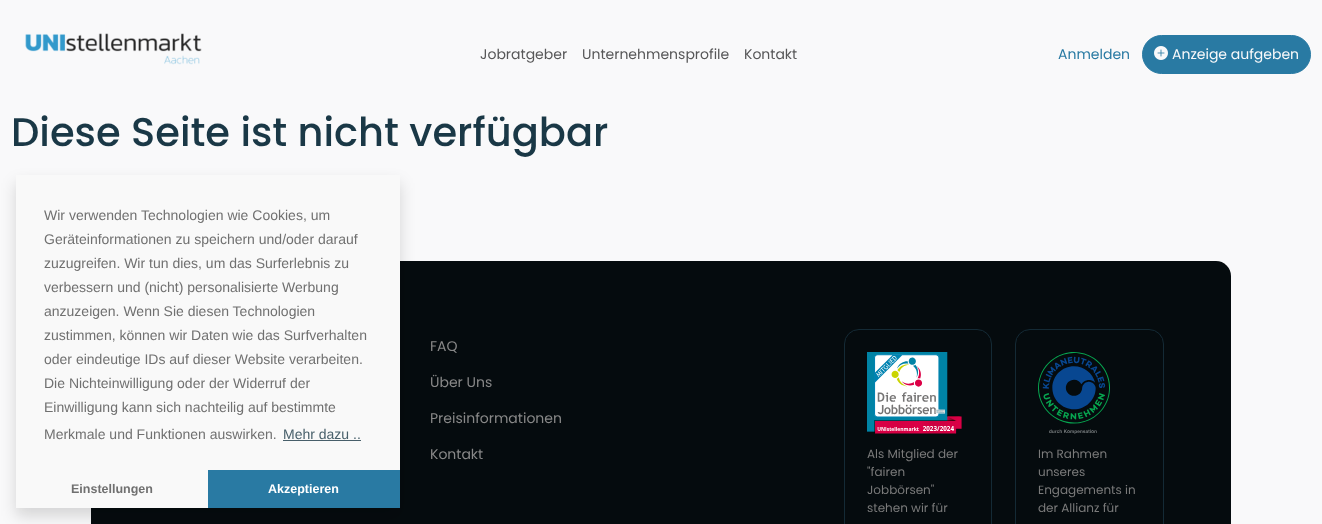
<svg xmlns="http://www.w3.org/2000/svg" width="1322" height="524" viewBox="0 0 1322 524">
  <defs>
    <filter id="blur1" x="-50%" y="-200%" width="200%" height="500%"><feGaussianBlur stdDeviation="7.5"/></filter>
  </defs>
  <rect width="100%" height="100%" fill="#f9f9fa"/>
  <image x="25" y="33" width="177" height="32" href="img1.png"/>
  <text x="480" y="59" font-family="Poppins" font-size="14" fill="#575758">Jobratgeber</text>
  <text x="582" y="59" font-family="Poppins" font-size="14" fill="#575758">Unternehmensprofile</text>
  <text x="744" y="59" font-family="Poppins" font-size="14" fill="#575758">Kontakt</text>
  <text x="1058" y="59" font-family="Poppins" font-size="14" fill="#297aa3">Anmelden</text>
  <rect x="1142.5" y="35.5" width="168" height="38" rx="19" fill="#297aa3" stroke="#297aa3"/>
  <image x="1154" y="46" width="14" height="14" href="img2.png"/>
  <text x="1172" y="59" font-family="Poppins" font-size="14" fill="#f9f9fa">Anzeige aufgeben</text>
  <text x="11" y="146" font-family="Poppins" font-size="40" font-weight="500" fill="#1a3846">Diese Seite ist nicht verfügbar</text>
  <rect x="91" y="261" width="1140" height="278" rx="15" fill="#050b0e"/>
  <rect x="16" y="183" width="384" height="333" fill="#000000" fill-opacity="0.15" filter="url(#blur1)"/>
  <rect x="16" y="175" width="384" height="333" fill="#f9f9f9"/>
  <text x="44" y="220" font-family="Liberation Sans" font-size="14" fill="#707070">Wir verwenden Technologien wie Cookies, um</text>
  <text x="44" y="244" font-family="Liberation Sans" font-size="14" fill="#707070">Geräteinformationen zu speichern und/oder darauf</text>
  <text x="44" y="268" font-family="Liberation Sans" font-size="14" fill="#707070">zuzugreifen. Wir tun dies, um das Surferlebnis zu</text>
  <text x="44" y="292" font-family="Liberation Sans" font-size="14" fill="#707070">verbessern und (nicht) personalisierte Werbung</text>
  <text x="44" y="316" font-family="Liberation Sans" font-size="14" fill="#707070">anzuzeigen. Wenn Sie diesen Technologien</text>
  <text x="44" y="340" font-family="Liberation Sans" font-size="14" fill="#707070">zustimmen, können wir Daten wie das Surfverhalten</text>
  <text x="44" y="364" font-family="Liberation Sans" font-size="14" fill="#707070">oder eindeutige IDs auf dieser Website verarbeiten.</text>
  <text x="44" y="388" font-family="Liberation Sans" font-size="14" fill="#707070">Die Nichteinwilligung oder der Widerruf der</text>
  <text x="44" y="412" font-family="Liberation Sans" font-size="14" fill="#707070">Einwilligung kann sich nachteilig auf bestimmte</text>
  <text x="44" y="439" font-family="Liberation Sans" font-size="14" fill="#707070">Merkmale und Funktionen auswirken.</text>
  <text x="283" y="439" font-family="Liberation Sans" font-size="14" fill="#475f6a">Mehr dazu ..</text>
  <rect x="283" y="440" width="78" height="1" fill="#475f6a"/>
  <text x="71" y="493" font-family="Liberation Sans" font-size="12.5" font-weight="bold" fill="#707070">Einstellungen</text>
  <rect x="208" y="470" width="192" height="38" fill="#297aa3"/>
  <text x="268" y="493" font-family="Liberation Sans" font-size="12.5" font-weight="bold" fill="#ffffff">Akzeptieren</text>
  <text x="430" y="351" font-family="Poppins" font-size="14" fill="#888888">FAQ</text>
  <text x="430" y="387" font-family="Poppins" font-size="14" fill="#888888">Über Uns</text>
  <text x="430" y="423" font-family="Poppins" font-size="14" fill="#888888">Preisinformationen</text>
  <text x="430" y="459" font-family="Poppins" font-size="14" fill="#888888">Kontakt</text>
  <rect x="844.5" y="329.5" width="147" height="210" rx="14.5" fill="none" stroke="#142a35"/>
  <image x="867" y="352" width="95" height="82" href="img3.png"/>
  <text x="867" y="458" font-family="Poppins" font-size="12" fill="#7a7a7a">Als Mitglied der</text>
  <text x="867" y="476" font-family="Poppins" font-size="12" fill="#7a7a7a">"fairen</text>
  <text x="867" y="494" font-family="Poppins" font-size="12" fill="#7a7a7a">Jobbörsen"</text>
  <text x="867" y="512" font-family="Poppins" font-size="12" fill="#7a7a7a">stehen wir für</text>
  <rect x="1015.5" y="329.5" width="148" height="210" rx="14.5" fill="none" stroke="#142a35"/>
  <image x="1038" y="352" width="72" height="82" href="img4.png"/>
  <text x="1038" y="458" font-family="Poppins" font-size="12" fill="#7a7a7a">Im Rahmen</text>
  <text x="1038" y="476" font-family="Poppins" font-size="12" fill="#7a7a7a">unseres</text>
  <text x="1038" y="494" font-family="Poppins" font-size="12" fill="#7a7a7a">Engagements in</text>
  <text x="1038" y="512" font-family="Poppins" font-size="12" fill="#7a7a7a">der Allianz für</text>
</svg>
